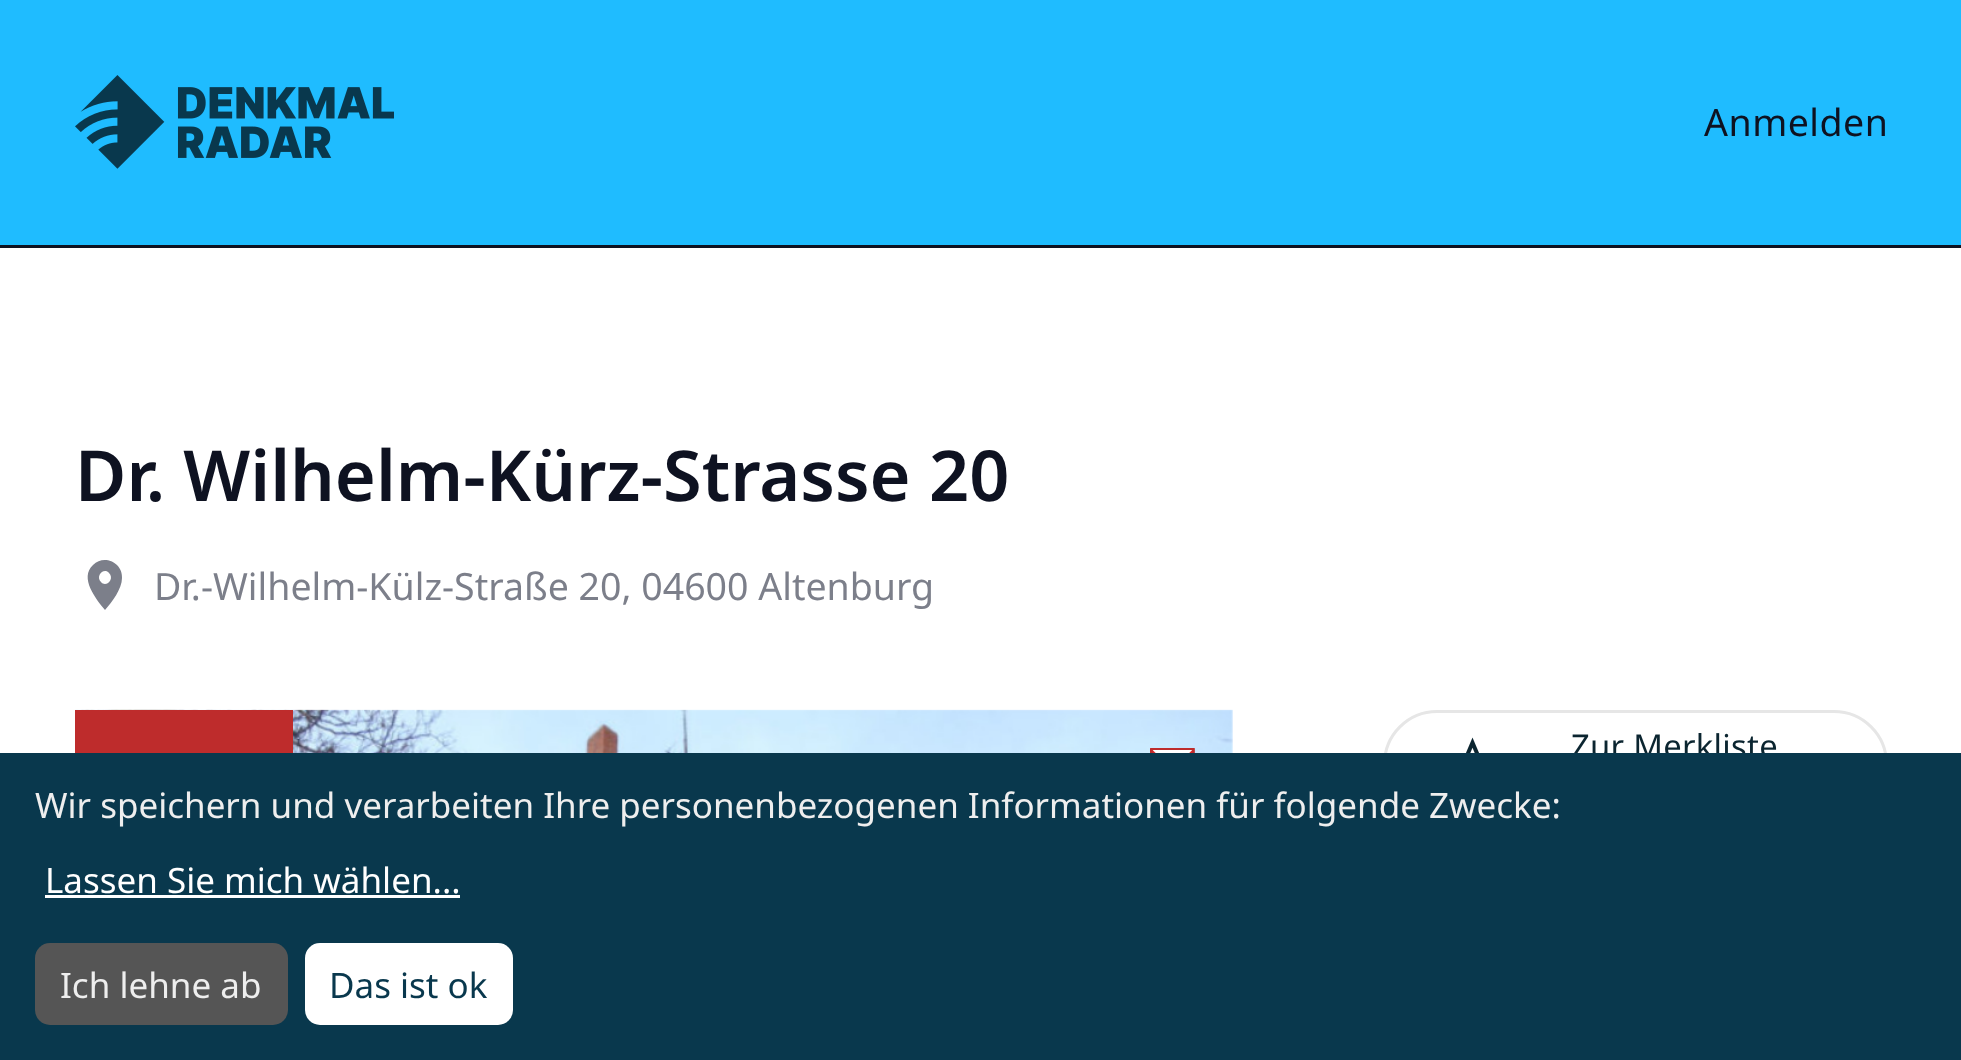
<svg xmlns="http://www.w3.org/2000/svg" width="1961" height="1060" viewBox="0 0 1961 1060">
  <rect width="100%" height="100%" fill="#ffffff"/>
  <rect x="0" y="0" width="1961" height="245" fill="#1fbcff"/>
  <rect x="0" y="245" width="1961" height="3" fill="#0e1221"/>
  <image x="75" y="75" width="319" height="94" href="img1.png"/>
  <text x="1704" y="136" font-family="Noto Sans" font-size="37.5" letter-spacing="0.5" fill="#0e1221">Anmelden</text>
  <text x="75" y="501" font-family="Noto Sans" font-size="70.25" font-weight="600" fill="#0e1221">Dr. Wilhelm-Kürz-Strasse 20</text>
  <path d="M101 582C106 588 115 579 109 573C104 567 95 576 101 582ZM93 565C104 554 123 563 122 578C122 589 112 602 105 610C96 599 79 578 93 565Z" fill="#7c7f8a"/>
  <text x="154" y="600" font-family="Noto Sans" font-size="37.5" fill="#7c7f8a">Dr.-Wilhelm-Külz-Straße 20, 04600 Altenburg</text>
  <image x="75" y="709" width="1158" height="44" href="img2.png"/>
  <rect x="75" y="710" width="218" height="43" fill="#be2c2c"/>
  <image x="1150" y="748" width="45" height="5" href="img3.png"/>
  <rect x="1384.5" y="711.5" width="502" height="105" rx="52.5" fill="none" stroke="#e6e6e6" stroke-width="3"/>
  <image x="1466" y="737" width="13" height="16" href="img4.png"/>
  <text x="1571" y="758" font-family="Noto Sans" font-size="32.75" letter-spacing="0.3" fill="#0b2530">Zur Merkliste</text>
  <rect x="0" y="753" width="1961" height="307" fill="#09384d"/>
  <text x="35" y="818" font-family="Noto Sans" font-size="35" fill="#eeeeee">Wir speichern und verarbeiten Ihre personenbezogenen Informationen für folgende Zwecke:</text>
  <text x="45" y="893" font-family="Noto Sans" font-size="35" fill="#ffffff">Lassen Sie mich wählen...</text>
  <rect x="45" y="895" width="415" height="3" fill="#ffffff"/>
  <rect x="35" y="943" width="253" height="82" rx="15" fill="#555555"/>
  <text x="60" y="998" font-family="Noto Sans" font-size="35" fill="#eeeeee">Ich lehne ab</text>
  <rect x="305" y="943" width="208" height="82" rx="15" fill="#ffffff"/>
  <text x="329" y="998" font-family="Noto Sans" font-size="35" fill="#09384d">Das ist ok</text>
</svg>
